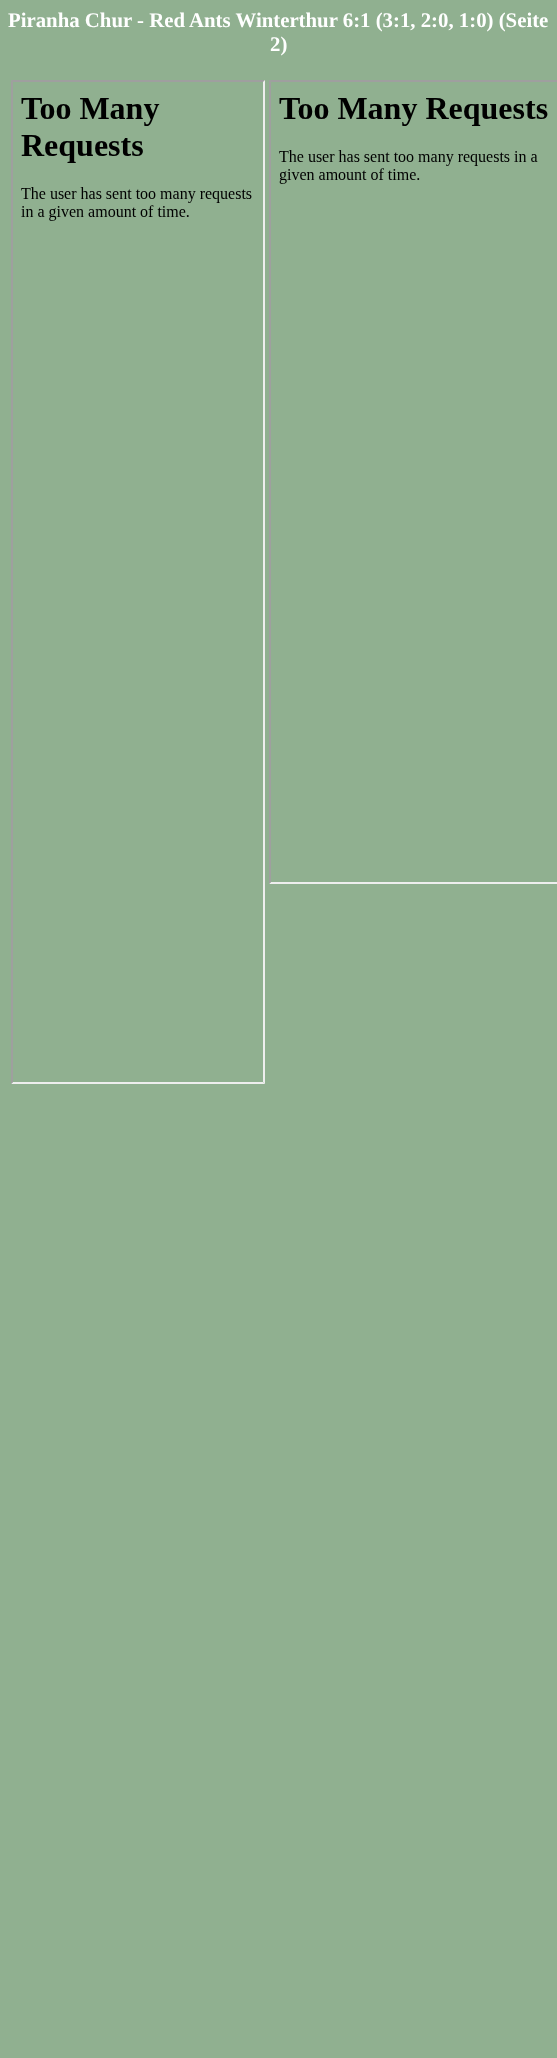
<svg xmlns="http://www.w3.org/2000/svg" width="557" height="2058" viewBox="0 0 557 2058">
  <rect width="100%" height="100%" fill="#90b090"/>
  <text x="8" y="27" font-family="Liberation Serif" font-size="20.8" font-weight="bold" fill="#ffffff">Piranha Chur - Red Ants Winterthur 6:1 (3:1, 2:0, 1:0) (Seite</text>
  <text x="270" y="51" font-family="Liberation Serif" font-size="20.8" font-weight="bold" fill="#ffffff">2)</text>
  <path d="M11 80H265L263 82H13Z" fill="#9f9f9f"/>
  <path d="M265 80V1084L263 1082V82Z" fill="#eeeeee"/>
  <path d="M265 1084H11L13 1082H263Z" fill="#eeeeee"/>
  <path d="M11 1084V80L13 82V1082Z" fill="#9f9f9f"/>
  <image x="21" y="98" width="231" height="123" href="img1.png"/>
  <path d="M269 80H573L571 82H271Z" fill="#9f9f9f"/>
  <path d="M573 884H269L271 882H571Z" fill="#eeeeee"/>
  <path d="M269 884V80L271 82V882Z" fill="#9f9f9f"/>
  <image x="279" y="98" width="269" height="86" href="img2.png"/>
</svg>
